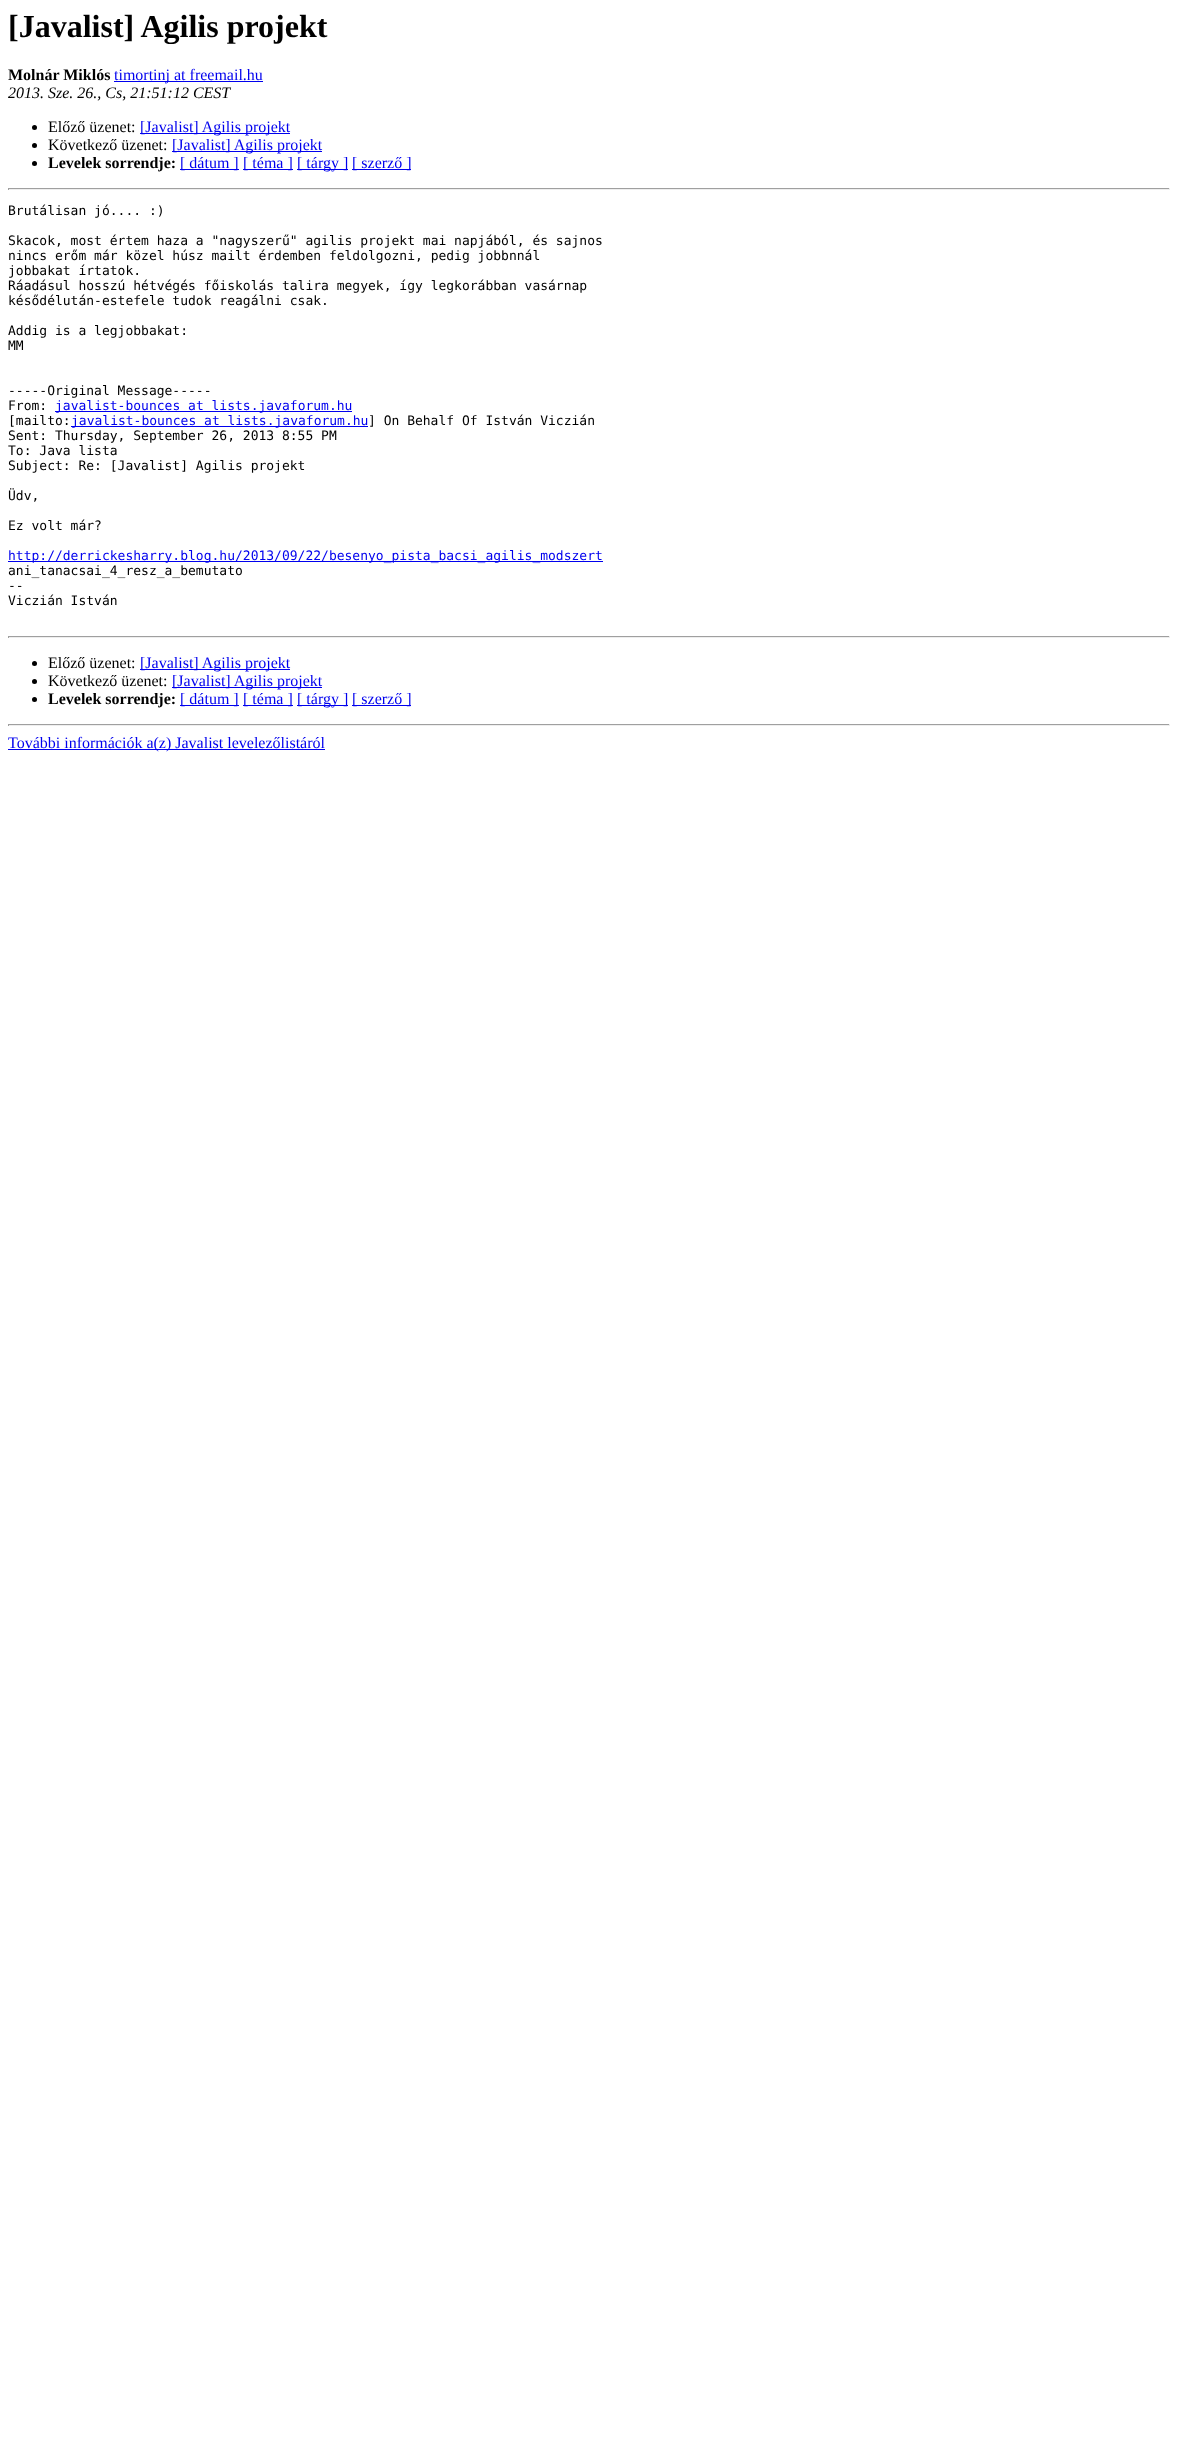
<svg xmlns="http://www.w3.org/2000/svg" width="1178" height="2445" viewBox="0 0 1178 2445">
  <rect width="100%" height="100%" fill="#ffffff"/>
  <text x="8" y="37" font-family="Liberation Serif" font-size="32" font-weight="bold" fill="#000000">[Javalist] Agilis projekt</text>
  <text x="8" y="80" font-family="Liberation Serif" font-size="16" font-weight="bold" fill="#000000">Molnár Miklós</text>
  <rect x="114" y="81" width="149" height="1" fill="#0000ee"/>
  <text x="114" y="80" font-family="Liberation Serif" font-size="16" fill="#0000ee">timortinj at freemail.hu</text>
  <text x="8" y="98" font-family="Liberation Serif" font-size="16" font-style="italic" fill="#000000">2013. Sze. 26., Cs, 21:51:12 CEST</text>
  <circle cx="34.5" cy="127.5" r="2.5" fill="#000000"/>
  <text x="48" y="132" font-family="Liberation Serif" font-size="16" fill="#000000">Előző üzenet:</text>
  <rect x="140" y="133" width="150" height="1" fill="#0000ee"/>
  <text x="140" y="132" font-family="Liberation Serif" font-size="16" fill="#0000ee">[Javalist] Agilis projekt</text>
  <circle cx="34.5" cy="145.5" r="2.5" fill="#000000"/>
  <text x="48" y="150" font-family="Liberation Serif" font-size="16" fill="#000000">Következő üzenet:</text>
  <rect x="172" y="151" width="150" height="1" fill="#0000ee"/>
  <text x="172" y="150" font-family="Liberation Serif" font-size="16" fill="#0000ee">[Javalist] Agilis projekt</text>
  <circle cx="34.5" cy="163.5" r="2.5" fill="#000000"/>
  <text x="48" y="168" font-family="Liberation Serif" font-size="16" font-weight="bold" fill="#000000">Levelek sorrendje:</text>
  <rect x="180" y="169" width="59" height="1" fill="#0000ee"/>
  <text x="180" y="168" font-family="Liberation Serif" font-size="16" fill="#0000ee">[ dátum ]</text>
  <rect x="243" y="169" width="50" height="1" fill="#0000ee"/>
  <text x="243" y="168" font-family="Liberation Serif" font-size="16" fill="#0000ee">[ téma ]</text>
  <rect x="297" y="169" width="51" height="1" fill="#0000ee"/>
  <text x="297" y="168" font-family="Liberation Serif" font-size="16" fill="#0000ee">[ tárgy ]</text>
  <rect x="352" y="169" width="59" height="1" fill="#0000ee"/>
  <text x="352" y="168" font-family="Liberation Serif" font-size="16" fill="#0000ee">[ szerző ]</text>
  <rect x="8" y="188" width="1162" height="1" fill="#9f9f9f"/>
  <rect x="1169" y="188" width="1" height="2" fill="#eeeeee"/>
  <rect x="8" y="189" width="1162" height="1" fill="#eeeeee"/>
  <rect x="8" y="188" width="1" height="2" fill="#9f9f9f"/>
  <text x="8" y="215" font-family="DejaVu Sans Mono" font-size="13" fill="#000000">Brutálisan jó.... :)</text>
  <text x="8" y="245" font-family="DejaVu Sans Mono" font-size="13" fill="#000000">Skacok, most értem haza a "nagyszerű" agilis projekt mai napjából, és sajnos</text>
  <text x="8" y="260" font-family="DejaVu Sans Mono" font-size="13" fill="#000000">nincs erőm már közel húsz mailt érdemben feldolgozni, pedig jobbnnál</text>
  <text x="8" y="275" font-family="DejaVu Sans Mono" font-size="13" fill="#000000">jobbakat írtatok.</text>
  <text x="8" y="290" font-family="DejaVu Sans Mono" font-size="13" fill="#000000">Ráadásul hosszú hétvégés főiskolás talira megyek, így legkorábban vasárnap</text>
  <text x="8" y="305" font-family="DejaVu Sans Mono" font-size="13" fill="#000000">késődélután-estefele tudok reagálni csak.</text>
  <text x="8" y="335" font-family="DejaVu Sans Mono" font-size="13" fill="#000000">Addig is a legjobbakat:</text>
  <text x="8" y="350" font-family="DejaVu Sans Mono" font-size="13" fill="#000000">MM</text>
  <text x="8" y="395" font-family="DejaVu Sans Mono" font-size="13" fill="#000000">-----Original Message-----</text>
  <text x="8" y="410" font-family="DejaVu Sans Mono" font-size="13" fill="#000000">From:</text>
  <rect x="55" y="411" width="297" height="1" fill="#0000ee"/>
  <text x="55" y="410" font-family="DejaVu Sans Mono" font-size="13" fill="#0000ee">javalist-bounces at lists.javaforum.hu</text>
  <text x="8" y="425" font-family="DejaVu Sans Mono" font-size="13" fill="#000000">[mailto:</text>
  <rect x="71" y="426" width="297" height="1" fill="#0000ee"/>
  <text x="71" y="425" font-family="DejaVu Sans Mono" font-size="13" fill="#0000ee">javalist-bounces at lists.javaforum.hu</text>
  <text x="368" y="425" font-family="DejaVu Sans Mono" font-size="13" fill="#000000">] On Behalf Of István Viczián</text>
  <text x="8" y="440" font-family="DejaVu Sans Mono" font-size="13" fill="#000000">Sent: Thursday, September 26, 2013 8:55 PM</text>
  <text x="8" y="455" font-family="DejaVu Sans Mono" font-size="13" fill="#000000">To: Java lista</text>
  <text x="8" y="470" font-family="DejaVu Sans Mono" font-size="13" fill="#000000">Subject: Re: [Javalist] Agilis projekt</text>
  <text x="8" y="500" font-family="DejaVu Sans Mono" font-size="13" fill="#000000">Üdv,</text>
  <text x="8" y="530" font-family="DejaVu Sans Mono" font-size="13" fill="#000000">Ez volt már?</text>
  <rect x="8" y="561" width="595" height="1" fill="#0000ee"/>
  <text x="8" y="560" font-family="DejaVu Sans Mono" font-size="13" fill="#0000ee">http://derrickesharry.blog.hu/2013/09/22/besenyo_pista_bacsi_agilis_modszert</text>
  <text x="8" y="575" font-family="DejaVu Sans Mono" font-size="13" fill="#000000">ani_tanacsai_4_resz_a_bemutato</text>
  <text x="8" y="590" font-family="DejaVu Sans Mono" font-size="13" fill="#000000">--</text>
  <text x="8" y="605" font-family="DejaVu Sans Mono" font-size="13" fill="#000000">Viczián István</text>
  <rect x="8" y="636" width="1162" height="1" fill="#9f9f9f"/>
  <rect x="1169" y="636" width="1" height="2" fill="#eeeeee"/>
  <rect x="8" y="637" width="1162" height="1" fill="#eeeeee"/>
  <rect x="8" y="636" width="1" height="2" fill="#9f9f9f"/>
  <circle cx="34.5" cy="663.5" r="2.5" fill="#000000"/>
  <text x="48" y="668" font-family="Liberation Serif" font-size="16" fill="#000000">Előző üzenet:</text>
  <rect x="140" y="669" width="150" height="1" fill="#0000ee"/>
  <text x="140" y="668" font-family="Liberation Serif" font-size="16" fill="#0000ee">[Javalist] Agilis projekt</text>
  <circle cx="34.5" cy="681.5" r="2.5" fill="#000000"/>
  <text x="48" y="686" font-family="Liberation Serif" font-size="16" fill="#000000">Következő üzenet:</text>
  <rect x="172" y="687" width="150" height="1" fill="#0000ee"/>
  <text x="172" y="686" font-family="Liberation Serif" font-size="16" fill="#0000ee">[Javalist] Agilis projekt</text>
  <circle cx="34.5" cy="699.5" r="2.5" fill="#000000"/>
  <text x="48" y="704" font-family="Liberation Serif" font-size="16" font-weight="bold" fill="#000000">Levelek sorrendje:</text>
  <rect x="180" y="705" width="59" height="1" fill="#0000ee"/>
  <text x="180" y="704" font-family="Liberation Serif" font-size="16" fill="#0000ee">[ dátum ]</text>
  <rect x="243" y="705" width="50" height="1" fill="#0000ee"/>
  <text x="243" y="704" font-family="Liberation Serif" font-size="16" fill="#0000ee">[ téma ]</text>
  <rect x="297" y="705" width="51" height="1" fill="#0000ee"/>
  <text x="297" y="704" font-family="Liberation Serif" font-size="16" fill="#0000ee">[ tárgy ]</text>
  <rect x="352" y="705" width="59" height="1" fill="#0000ee"/>
  <text x="352" y="704" font-family="Liberation Serif" font-size="16" fill="#0000ee">[ szerző ]</text>
  <rect x="8" y="724" width="1162" height="1" fill="#9f9f9f"/>
  <rect x="1169" y="724" width="1" height="2" fill="#eeeeee"/>
  <rect x="8" y="725" width="1162" height="1" fill="#eeeeee"/>
  <rect x="8" y="724" width="1" height="2" fill="#9f9f9f"/>
  <rect x="8" y="749" width="317" height="1" fill="#0000ee"/>
  <text x="8" y="748" font-family="Liberation Serif" font-size="16" fill="#0000ee">További információk a(z) Javalist levelezőlistáról</text>
</svg>
